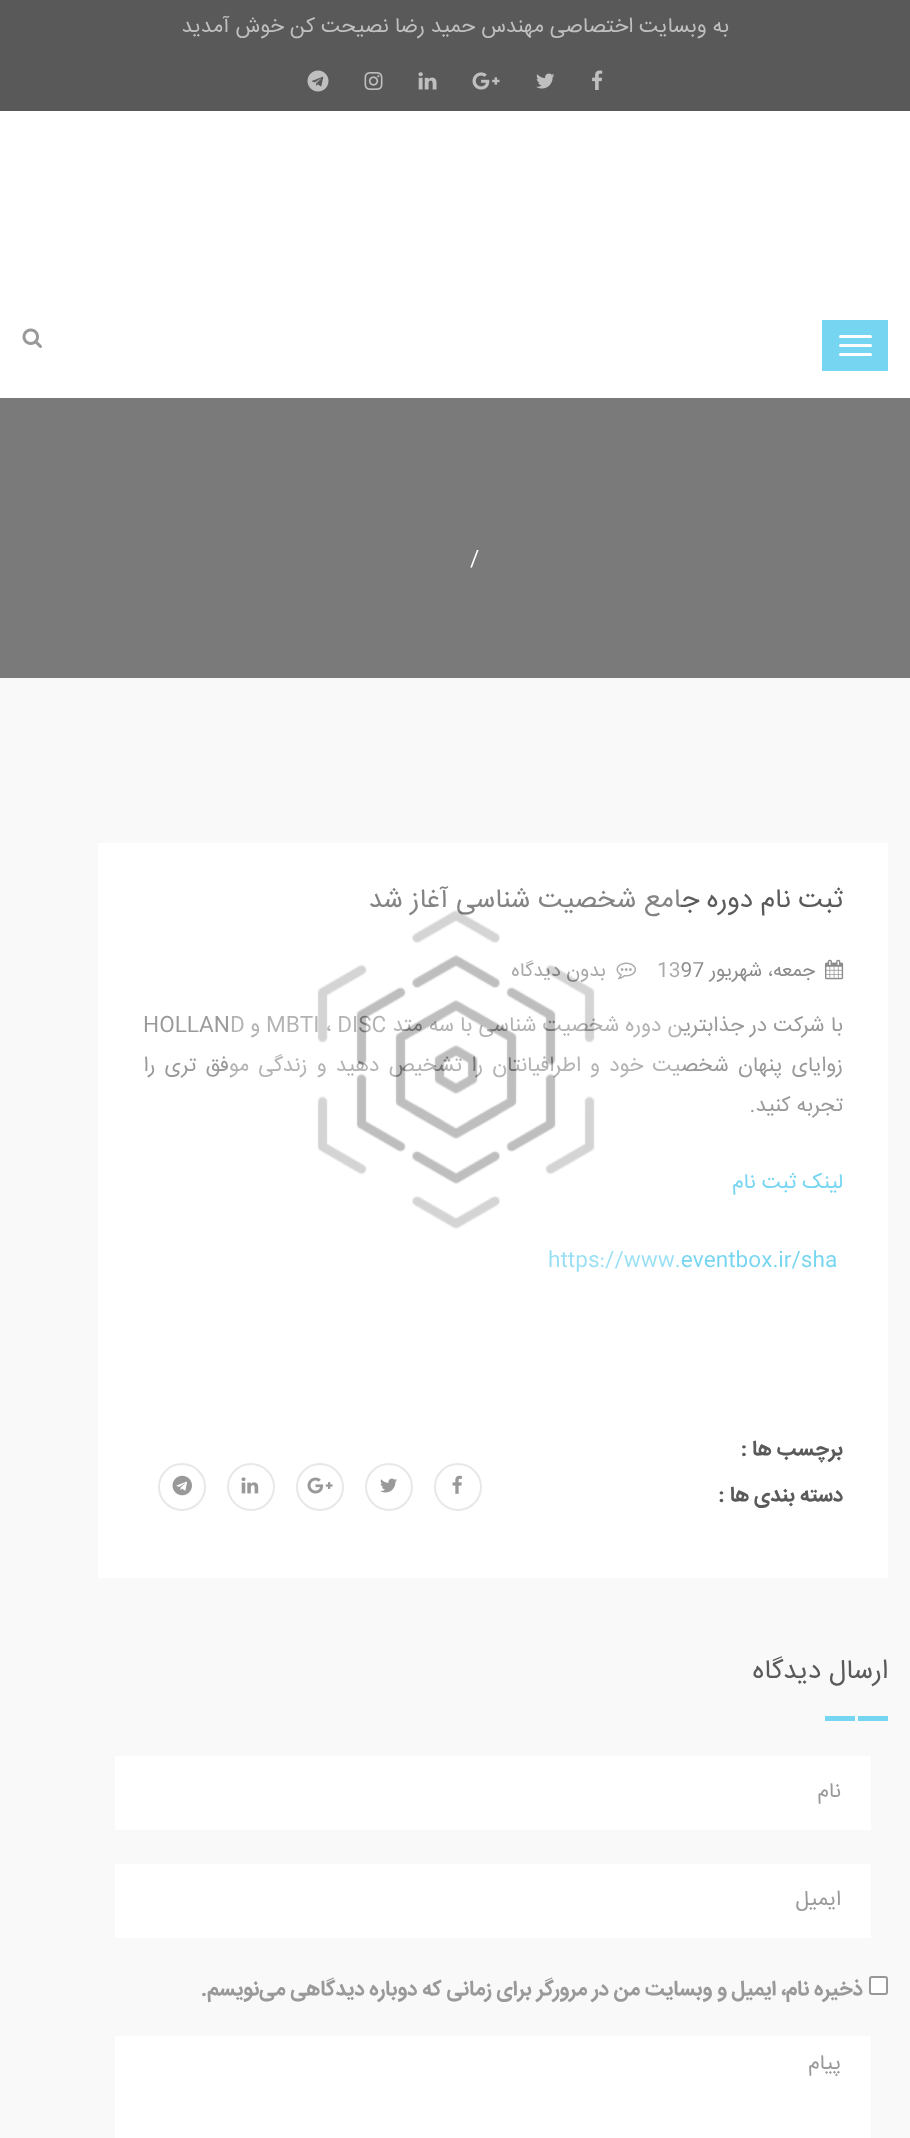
<svg xmlns="http://www.w3.org/2000/svg" width="910" height="2138" viewBox="0 0 910 2138">
  <rect width="100%" height="100%" fill="#ffffff"/>
  <rect x="0" y="0" width="910" height="111" fill="#595959"/>
  <text x="729" y="32" font-family="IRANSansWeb" font-size="21" direction="rtl" fill="#bfbfbf">به وبسایت اختصاصی مهندس حمید رضا نصیحت کن خوش آمدید</text>
  <image x="592" y="70" width="11" height="20" href="img1.png"/>
  <image x="536" y="73" width="19" height="16" href="img2.png"/>
  <image x="472" y="72" width="28" height="18" href="img3.png"/>
  <image x="418" y="72" width="19" height="18" href="img4.png"/>
  <image x="364" y="72" width="19" height="18" href="img5.png"/>
  <image x="307" y="70" width="22" height="22" href="img6.png"/>
  <rect x="822" y="320" width="66" height="51" fill="#76d5f1"/>
  <rect x="839" y="335" width="33" height="3" rx="1.5" fill="#ffffff"/>
  <rect x="839" y="344" width="33" height="3" rx="1.5" fill="#ffffff"/>
  <rect x="839" y="353" width="33" height="3" rx="1.5" fill="#ffffff"/>
  <image x="22" y="328" width="20" height="20" href="img7.png"/>
  <rect x="0" y="398" width="910" height="280" fill="#7a7a7a"/>
  <text x="470" y="565" font-family="IRANSansWeb" font-size="21" fill="#ffffff">/</text>
  <rect x="0" y="678" width="910" height="1460" fill="#f9f9f9"/>
  <rect x="98" y="843" width="790" height="735" fill="#ffffff"/>
  <text x="843" y="907" font-family="IRANSansWeb" font-size="27" direction="rtl" fill="#5a5a5a">ثبت نام دوره جامع شخصیت شناسی آغاز شد</text>
  <image x="825" y="959" width="19" height="21" href="img8.png"/>
  <text x="815" y="976" font-family="IRANSansWeb" font-size="19.5" direction="rtl" fill="#8c8c8c">جمعه، شهریور</text>
  <text x="657" y="976" font-family="IRANSansWeb" font-size="19.5" fill="#8c8c8c">1397</text>
  <image x="616" y="962" width="20" height="18" href="img9.png"/>
  <text x="606" y="976" font-family="IRANSansWeb" font-size="19.5" direction="rtl" fill="#8c8c8c">بدون دیدگاه</text>
  <text x="843" y="1031" word-spacing="0.25" font-family="IRANSansWeb" font-size="21" direction="rtl" fill="#999999">با شرکت در جذابترین دوره شخصیت شناسی با سه متد</text>
  <text x="266" y="1031" font-family="IRANSansWeb" font-size="21" fill="#999999">MBTI ، DISC</text>
  <text x="260" y="1031" font-family="IRANSansWeb" font-size="21" direction="rtl" fill="#999999">و</text>
  <text x="143" y="1031" font-family="IRANSansWeb" font-size="21" fill="#999999">HOLLAND</text>
  <text x="843" y="1071" word-spacing="3.25" font-family="IRANSansWeb" font-size="21" direction="rtl" fill="#999999">زوایای پنهان شخصیت خود و اطرافیانتان را تشخیص دهید و زندگی موفق تری را</text>
  <text x="843" y="1111" font-family="IRANSansWeb" font-size="21" direction="rtl" fill="#999999">تجربه کنید.</text>
  <text x="843" y="1188" font-family="IRANSansWeb" font-size="21" direction="rtl" fill="#76d5f1">لینک ثبت نام</text>
  <text x="548" y="1266" font-family="IRANSansWeb" font-size="21" fill="#76d5f1">https://www.eventbox.ir/sha</text>
  <text x="843" y="1455" font-family="IRANSansWeb" font-size="21" font-weight="bold" direction="rtl" fill="#5a5a5a">برچسب ها :</text>
  <text x="843" y="1501" font-family="IRANSansWeb" font-size="21" font-weight="bold" direction="rtl" fill="#5a5a5a">دسته بندی ها :</text>
  <circle cx="458" cy="1487" r="23" fill="none" stroke="#e8e8e8" stroke-width="2"/>
  <image x="452" y="1475" width="10" height="19" href="img10.png"/>
  <circle cx="389" cy="1487" r="23" fill="none" stroke="#e8e8e8" stroke-width="2"/>
  <image x="380" y="1478" width="17" height="15" href="img11.png"/>
  <circle cx="320" cy="1487" r="23" fill="none" stroke="#e8e8e8" stroke-width="2"/>
  <image x="307" y="1477" width="26" height="17" href="img12.png"/>
  <circle cx="251" cy="1487" r="23" fill="none" stroke="#e8e8e8" stroke-width="2"/>
  <image x="241" y="1477" width="18" height="17" href="img13.png"/>
  <circle cx="182" cy="1487" r="23" fill="none" stroke="#e8e8e8" stroke-width="2"/>
  <image x="172" y="1475" width="20" height="21" href="img14.png"/>
  <text x="888" y="1678" font-family="IRANSansWeb" font-size="27" direction="rtl" fill="#5a5a5a">ارسال دیدگاه</text>
  <rect x="858" y="1716" width="30" height="5" fill="#76d5f1"/>
  <rect x="825" y="1716" width="30" height="5" fill="#76d5f1"/>
  <rect x="115" y="1756" width="756" height="74" fill="#ffffff"/>
  <text x="841" y="1797" font-family="IRANSansWeb" font-size="21" direction="rtl" fill="#999999">نام</text>
  <rect x="115" y="1864" width="756" height="74" fill="#ffffff"/>
  <text x="841" y="1905" font-family="IRANSansWeb" font-size="21" direction="rtl" fill="#999999">ایمیل</text>
  <rect x="870" y="1977" width="17" height="17" rx="2" fill="#ffffff" stroke="#989898" stroke-width="2"/>
  <text x="863" y="1995" font-family="IRANSansWeb" font-size="21" font-weight="bold" direction="rtl" fill="#999999">ذخیره نام، ایمیل و وبسایت من در مرورگر برای زمانی که دوباره دیدگاهی می‌نویسم.</text>
  <rect x="115" y="2036" width="756" height="102" fill="#ffffff"/>
  <text x="841" y="2069" font-family="IRANSansWeb" font-size="21" direction="rtl" fill="#999999">پیام</text>
  <image x="231" y="886" width="450" height="386" href="img15.png"/>
</svg>
